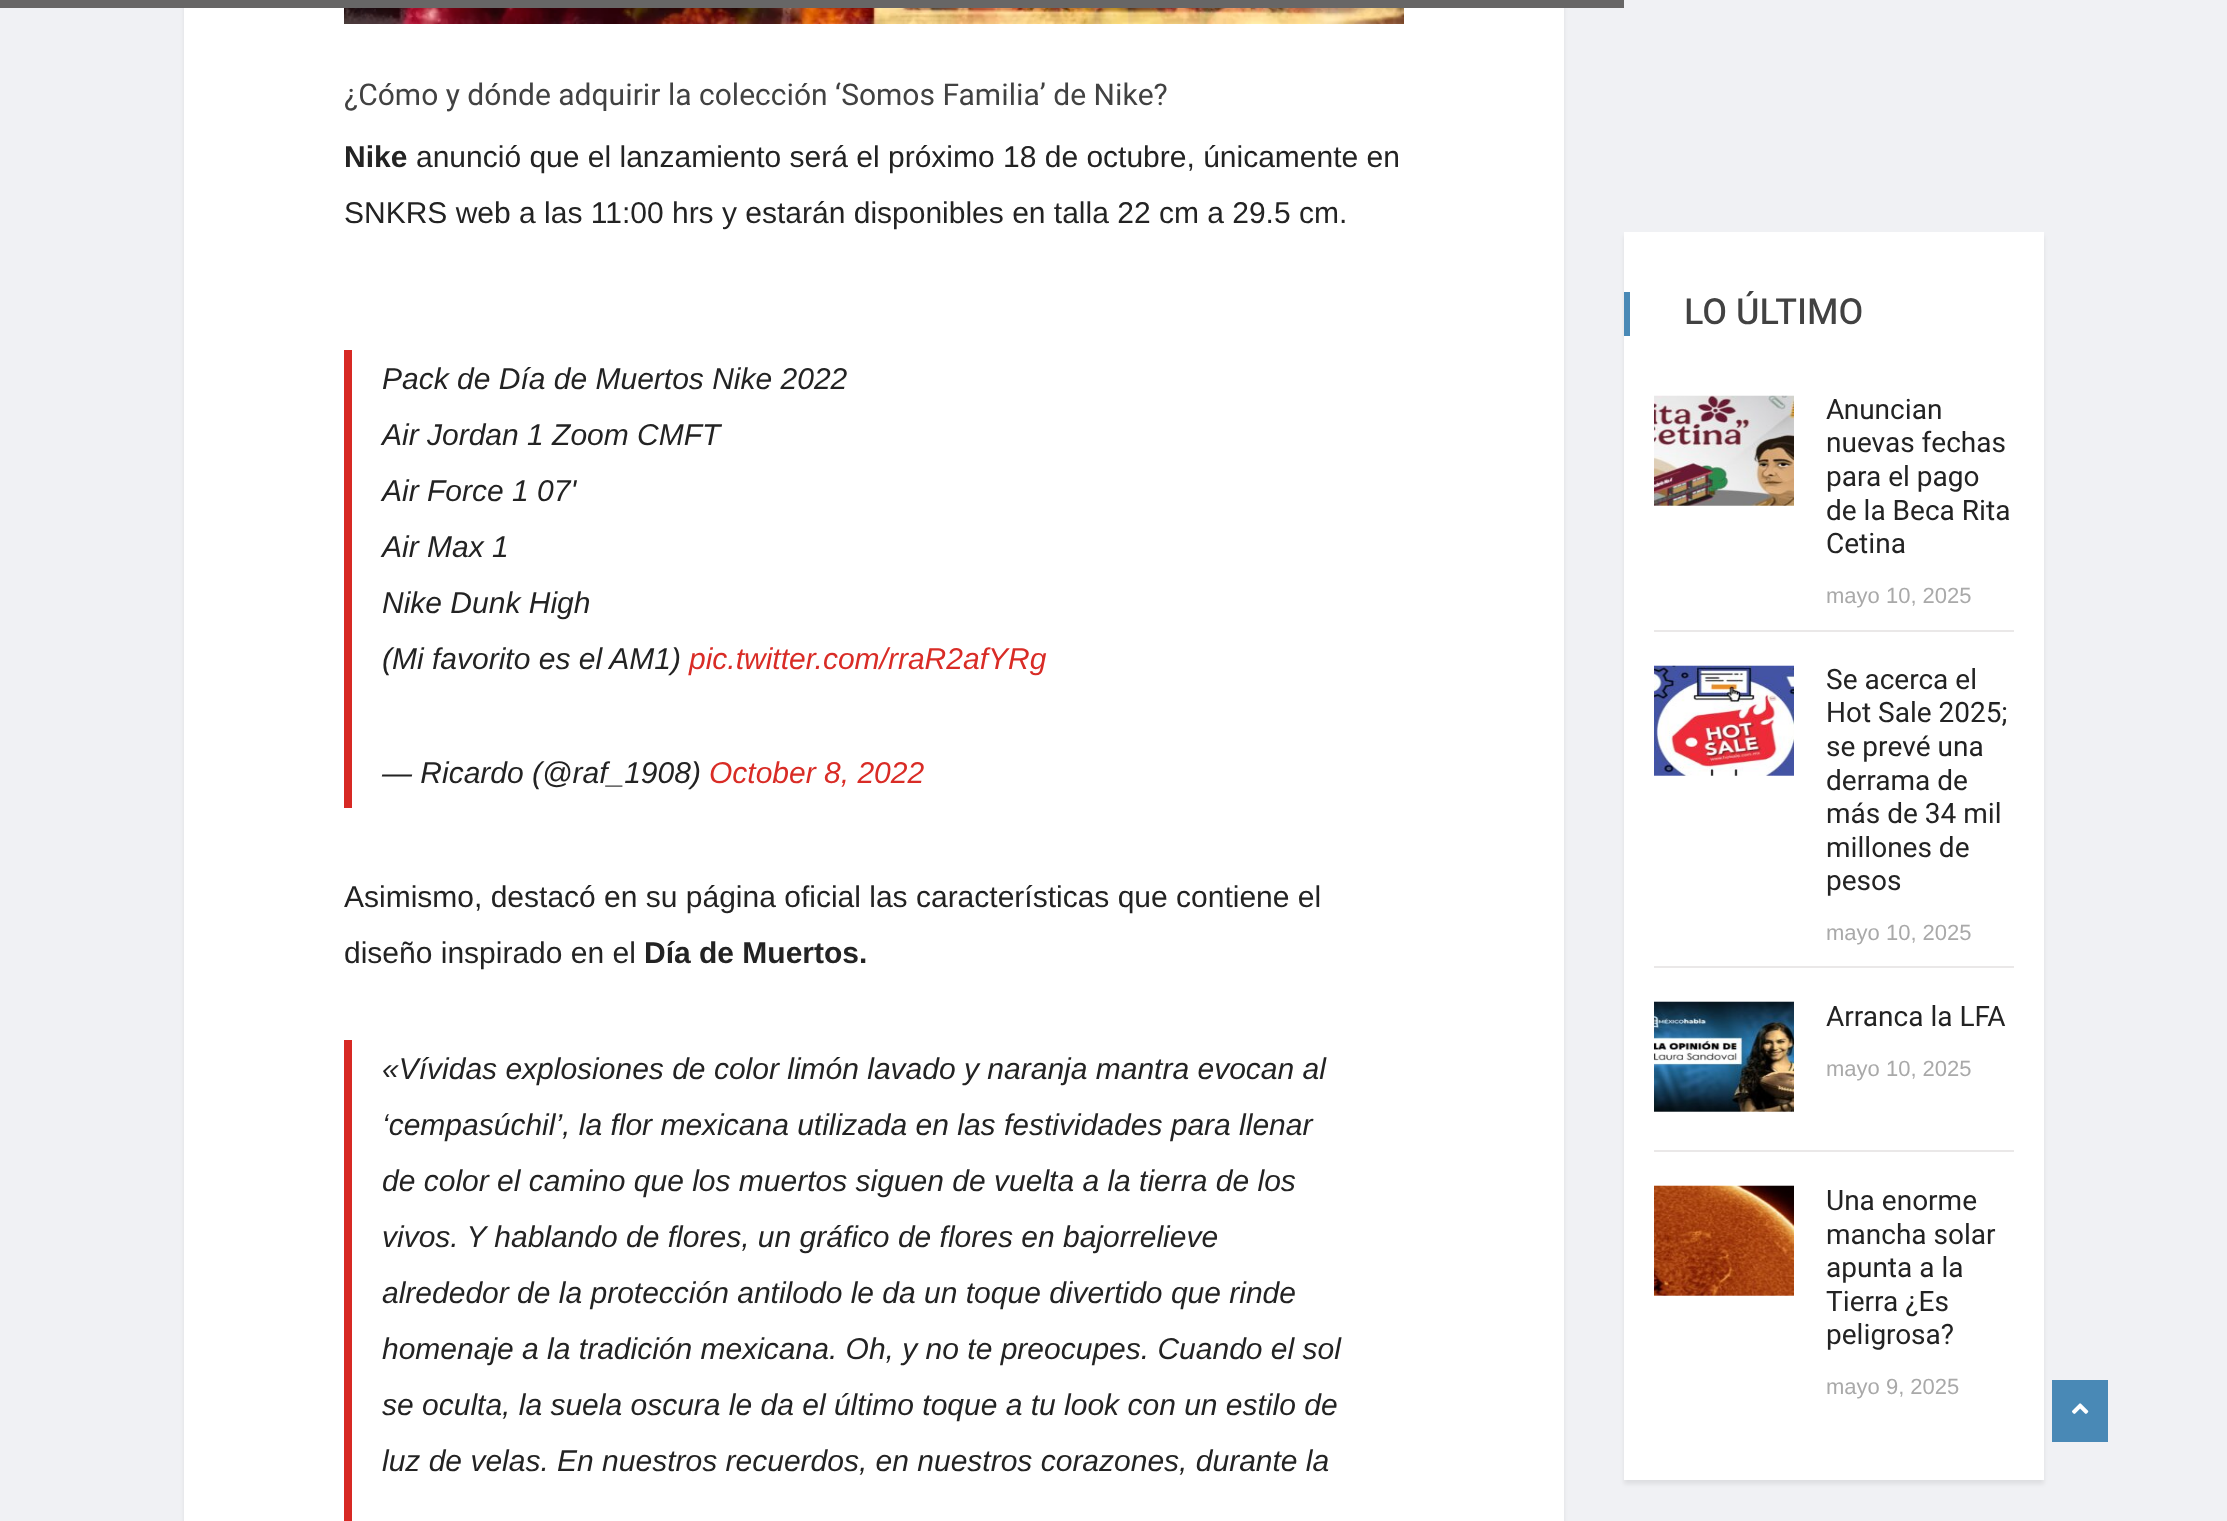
<svg xmlns="http://www.w3.org/2000/svg" width="2227" height="1521" viewBox="0 0 2227 1521">
  <defs>
    <filter id="blur1" x="-50%" y="-200%" width="200%" height="500%"><feGaussianBlur stdDeviation="2"/></filter>
  </defs>
  <rect width="100%" height="100%" fill="#f0f1f4"/>
  <rect x="184" y="-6" width="1380" height="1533" fill="#000000" fill-opacity="0.08" filter="url(#blur1)"/>
  <rect x="0" y="0" width="1624" height="8" fill="#676666"/>
  <rect x="184" y="8" width="1380" height="1513" fill="#ffffff"/>
  <image x="344" y="8" width="1060" height="16" href="img1.png"/>
  <text x="344" y="105" font-family="Heebo" font-size="30" fill="#424242">¿Cómo y dónde adquirir la colección ‘Somos Familia’ de Nike?</text>
  <text x="344" y="167" font-family="Arimo" font-size="30" font-weight="bold" fill="#232323">Nike</text>
  <text x="416" y="167" font-family="Arimo" font-size="30" fill="#232323">anunció que el lanzamiento será el próximo 18 de octubre, únicamente en</text>
  <text x="344" y="223" font-family="Arimo" font-size="30" fill="#232323">SNKRS web a las 11:00 hrs y estarán disponibles en talla 22 cm a 29.5 cm.</text>
  <rect x="344" y="350" width="8" height="458" fill="#d72924"/>
  <text x="382" y="389" font-family="Arimo" font-size="30" font-style="italic" fill="#232323">Pack de Día de Muertos Nike 2022</text>
  <text x="382" y="445" font-family="Arimo" font-size="30" font-style="italic" fill="#232323">Air Jordan 1 Zoom CMFT</text>
  <text x="382" y="501" font-family="Arimo" font-size="30" font-style="italic" fill="#232323">Air Force 1 07'</text>
  <text x="382" y="557" font-family="Arimo" font-size="30" font-style="italic" fill="#232323">Air Max 1</text>
  <text x="382" y="613" font-family="Arimo" font-size="30" font-style="italic" fill="#232323">Nike Dunk High</text>
  <text x="382" y="669" font-family="Arimo" font-size="30" font-style="italic" fill="#232323">(Mi favorito es el AM1)</text>
  <text x="689" y="669" font-family="Arimo" font-size="30" font-style="italic" fill="#d92c26">pic.twitter.com/rraR2afYRg</text>
  <text x="382" y="783" font-family="Arimo" font-size="30" font-style="italic" fill="#232323">— Ricardo (@raf_1908)</text>
  <text x="709" y="783" font-family="Arimo" font-size="30" font-style="italic" fill="#d92c26">October 8, 2022</text>
  <text x="344" y="907" font-family="Arimo" font-size="30" fill="#232323">Asimismo, destacó en su página oficial las características que contiene el</text>
  <text x="344" y="963" font-family="Arimo" font-size="30" fill="#232323">diseño inspirado en el</text>
  <text x="644" y="963" font-family="Arimo" font-size="30" font-weight="bold" fill="#232323">Día de Muertos.</text>
  <rect x="344" y="1040" width="8" height="481" fill="#d72924"/>
  <text x="382" y="1079" font-family="Arimo" font-size="30" font-style="italic" fill="#232323">«Vívidas explosiones de color limón lavado y naranja mantra evocan al</text>
  <text x="382" y="1135" font-family="Arimo" font-size="30" font-style="italic" fill="#232323">‘cempasúchil’, la flor mexicana utilizada en las festividades para llenar</text>
  <text x="382" y="1191" font-family="Arimo" font-size="30" font-style="italic" fill="#232323">de color el camino que los muertos siguen de vuelta a la tierra de los</text>
  <text x="382" y="1247" font-family="Arimo" font-size="30" font-style="italic" fill="#232323">vivos. Y hablando de flores, un gráfico de flores en bajorrelieve</text>
  <text x="382" y="1303" font-family="Arimo" font-size="30" font-style="italic" fill="#232323">alrededor de la protección antilodo le da un toque divertido que rinde</text>
  <text x="382" y="1359" font-family="Arimo" font-size="30" font-style="italic" fill="#232323">homenaje a la tradición mexicana. Oh, y no te preocupes. Cuando el sol</text>
  <text x="382" y="1415" font-family="Arimo" font-size="30" font-style="italic" fill="#232323">se oculta, la suela oscura le da el último toque a tu look con un estilo de</text>
  <text x="382" y="1471" font-family="Arimo" font-size="30" font-style="italic" fill="#232323">luz de velas. En nuestros recuerdos, en nuestros corazones, durante la</text>
  <rect x="1624" y="236" width="420" height="1248" fill="#000000" fill-opacity="0.08" filter="url(#blur1)"/>
  <rect x="1624" y="232" width="420" height="1248" fill="#ffffff"/>
  <rect x="1624" y="292" width="6" height="44" fill="#4989b6"/>
  <text x="1684" y="324" font-family="Heebo" font-size="36" font-weight="500" fill="#424242">LO ÚLTIMO</text>
  <rect x="1654" y="630" width="360" height="2" fill="#eae8e8"/>
  <image x="1654" y="395" width="140" height="111" href="img2.png"/>
  <text x="1826" y="419" font-family="Heebo" font-size="28" fill="#232323">Anuncian</text>
  <text x="1826" y="452" font-family="Heebo" font-size="28" fill="#232323">nuevas fechas</text>
  <text x="1826" y="486" font-family="Heebo" font-size="28" fill="#232323">para el pago</text>
  <text x="1826" y="520" font-family="Heebo" font-size="28" fill="#232323">de la Beca Rita</text>
  <text x="1826" y="553" font-family="Heebo" font-size="28" fill="#232323">Cetina</text>
  <text x="1826" y="603" font-family="Arimo" font-size="22" fill="#a9a9a9">mayo 10, 2025</text>
  <rect x="1654" y="966" width="360" height="2" fill="#eae8e8"/>
  <image x="1654" y="665" width="140" height="111" href="img3.png"/>
  <text x="1826" y="689" font-family="Heebo" font-size="28" fill="#232323">Se acerca el</text>
  <text x="1826" y="722" font-family="Heebo" font-size="28" fill="#232323">Hot Sale 2025;</text>
  <text x="1826" y="756" font-family="Heebo" font-size="28" fill="#232323">se prevé una</text>
  <text x="1826" y="790" font-family="Heebo" font-size="28" fill="#232323">derrama de</text>
  <text x="1826" y="823" font-family="Heebo" font-size="28" fill="#232323">más de 34 mil</text>
  <text x="1826" y="857" font-family="Heebo" font-size="28" fill="#232323">millones de</text>
  <text x="1826" y="890" font-family="Heebo" font-size="28" fill="#232323">pesos</text>
  <text x="1826" y="940" font-family="Arimo" font-size="22" fill="#a9a9a9">mayo 10, 2025</text>
  <rect x="1654" y="1150" width="360" height="2" fill="#eae8e8"/>
  <image x="1654" y="1001" width="140" height="111" href="img4.png"/>
  <text x="1826" y="1026" font-family="Heebo" font-size="28" fill="#232323">Arranca la LFA</text>
  <text x="1826" y="1076" font-family="Arimo" font-size="22" fill="#a9a9a9">mayo 10, 2025</text>
  <image x="1654" y="1185" width="140" height="111" href="img5.png"/>
  <text x="1826" y="1210" font-family="Heebo" font-size="28" fill="#232323">Una enorme</text>
  <text x="1826" y="1244" font-family="Heebo" font-size="28" fill="#232323">mancha solar</text>
  <text x="1826" y="1277" font-family="Heebo" font-size="28" fill="#232323">apunta a la</text>
  <text x="1826" y="1311" font-family="Heebo" font-size="28" fill="#232323">Tierra ¿Es</text>
  <text x="1826" y="1344" font-family="Heebo" font-size="28" fill="#232323">peligrosa?</text>
  <text x="1826" y="1394" font-family="Arimo" font-size="22" fill="#a9a9a9">mayo 9, 2025</text>
  <rect x="2052" y="1380" width="56" height="62" fill="#4989b6"/>
  <image x="2072" y="1403" width="17" height="11" href="img6.png"/>
</svg>
